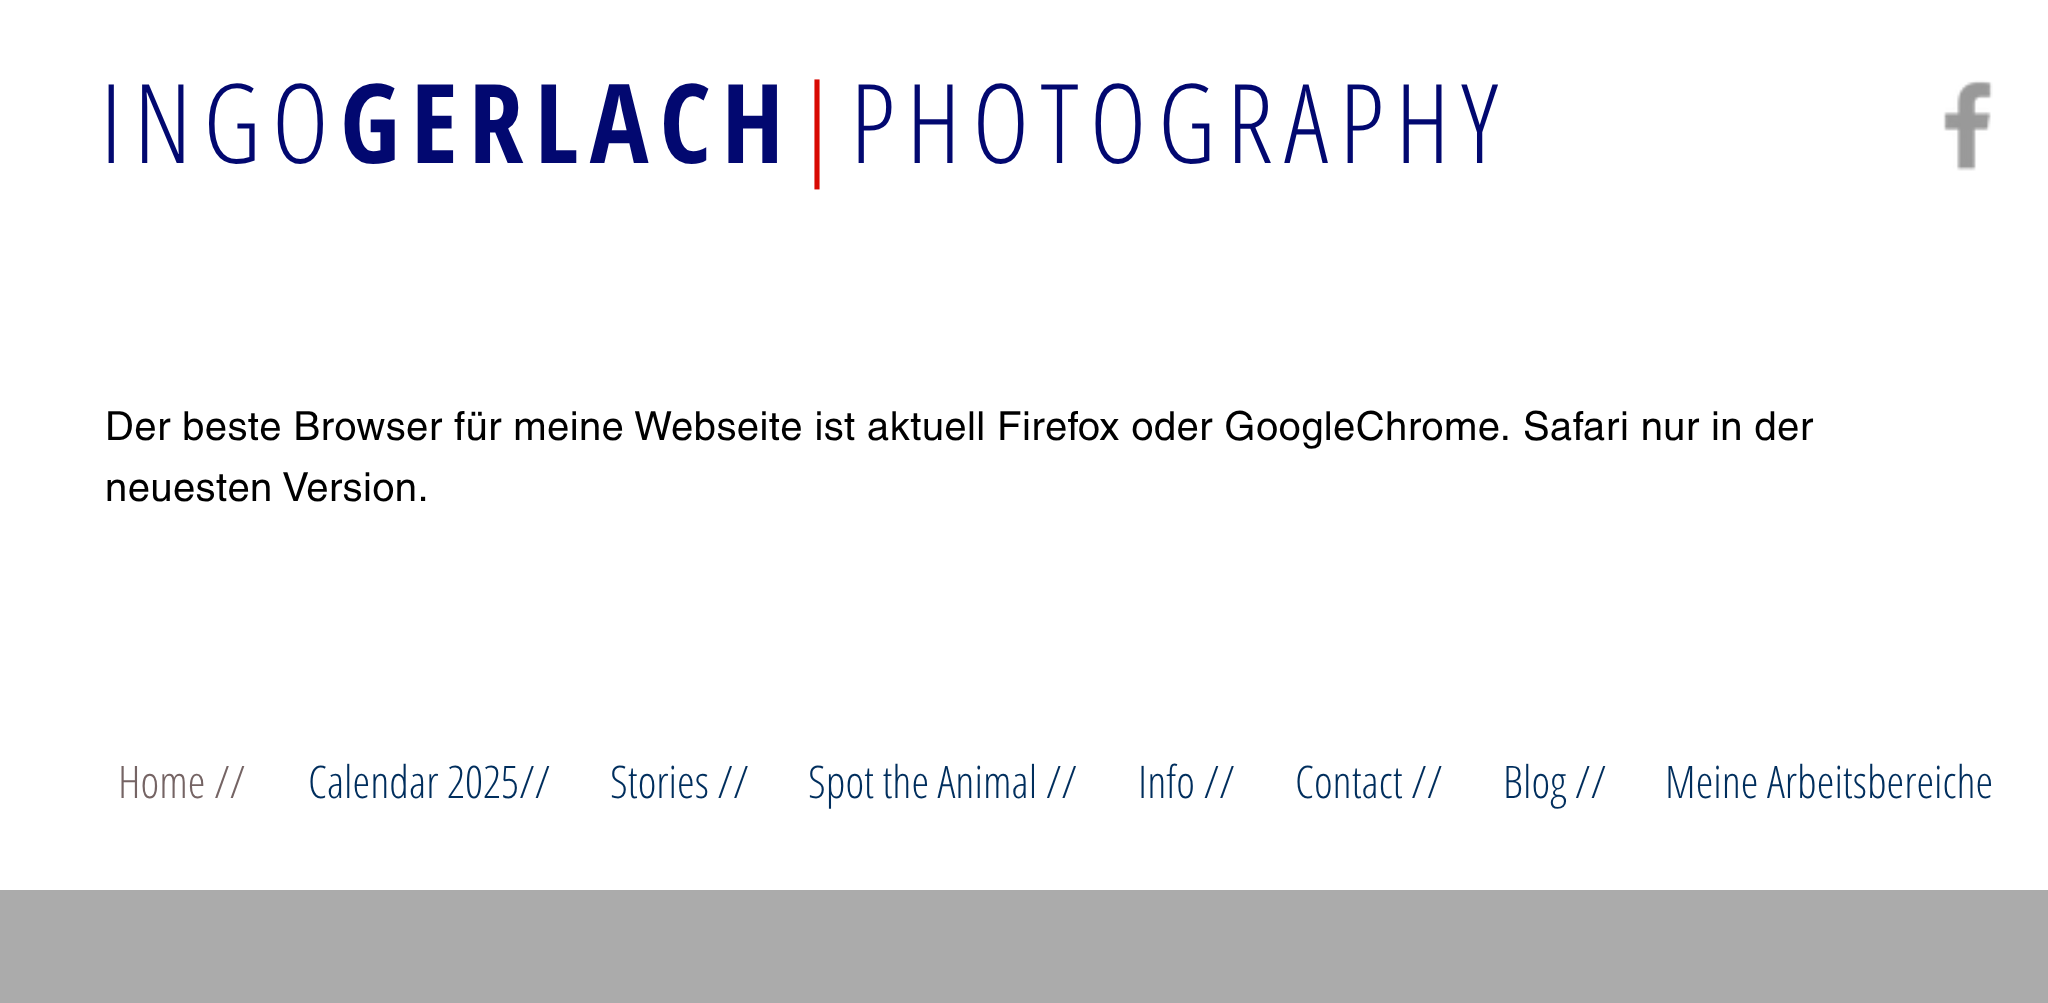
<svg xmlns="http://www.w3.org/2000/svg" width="2048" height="1003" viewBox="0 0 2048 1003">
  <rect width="100%" height="100%" fill="#ababab"/>
  <rect x="0" y="0" width="2048" height="890" fill="#ffffff"/>
  <text x="100" y="163" font-family="Open Sans Condensed" font-size="110" font-weight="300" letter-spacing="11" fill="#020870">INGO</text>
  <text x="340" y="163" font-family="Open Sans Condensed" font-size="110" font-weight="bold" letter-spacing="11" fill="#020870">GERLACH</text>
  <text x="795" y="163" font-family="Open Sans Condensed" font-size="110" font-weight="300" letter-spacing="11" fill="#d80902">|</text>
  <text x="850" y="163" font-family="Open Sans Condensed" font-size="110" font-weight="300" letter-spacing="11" fill="#020870">PHOTOGRAPHY</text>
  <image x="1943" y="80" width="50" height="91" href="img1.png"/>
  <text x="105" y="440" font-family="helvetica" font-size="40" letter-spacing="0.4" fill="#000000">Der beste Browser für meine Webseite ist aktuell Firefox oder GoogleChrome.</text>
  <text x="1523" y="440" font-family="helvetica" font-size="40" letter-spacing="0.4" fill="#000000">Safari nur in der</text>
  <text x="105" y="501" font-family="helvetica" font-size="40" letter-spacing="0.4" fill="#000000">neuesten Version.</text>
  <text x="118" y="798" font-family="Open Sans Condensed" font-size="45" font-weight="300" fill="#756464">Home //</text>
  <text x="308" y="798" font-family="Open Sans Condensed" font-size="45" font-weight="300" fill="#002e5d">Calendar 2025//</text>
  <text x="610" y="798" font-family="Open Sans Condensed" font-size="45" font-weight="300" fill="#002e5d">Stories //</text>
  <text x="808" y="798" font-family="Open Sans Condensed" font-size="45" font-weight="300" fill="#002e5d">Spot the Animal //</text>
  <text x="1138" y="798" font-family="Open Sans Condensed" font-size="45" font-weight="300" fill="#002e5d">Info //</text>
  <text x="1295" y="798" font-family="Open Sans Condensed" font-size="45" font-weight="300" fill="#002e5d">Contact //</text>
  <text x="1503" y="798" font-family="Open Sans Condensed" font-size="45" font-weight="300" fill="#002e5d">Blog //</text>
  <text x="1665" y="798" font-family="Open Sans Condensed" font-size="45" font-weight="300" fill="#002e5d">Meine Arbeitsbereiche</text>
</svg>
